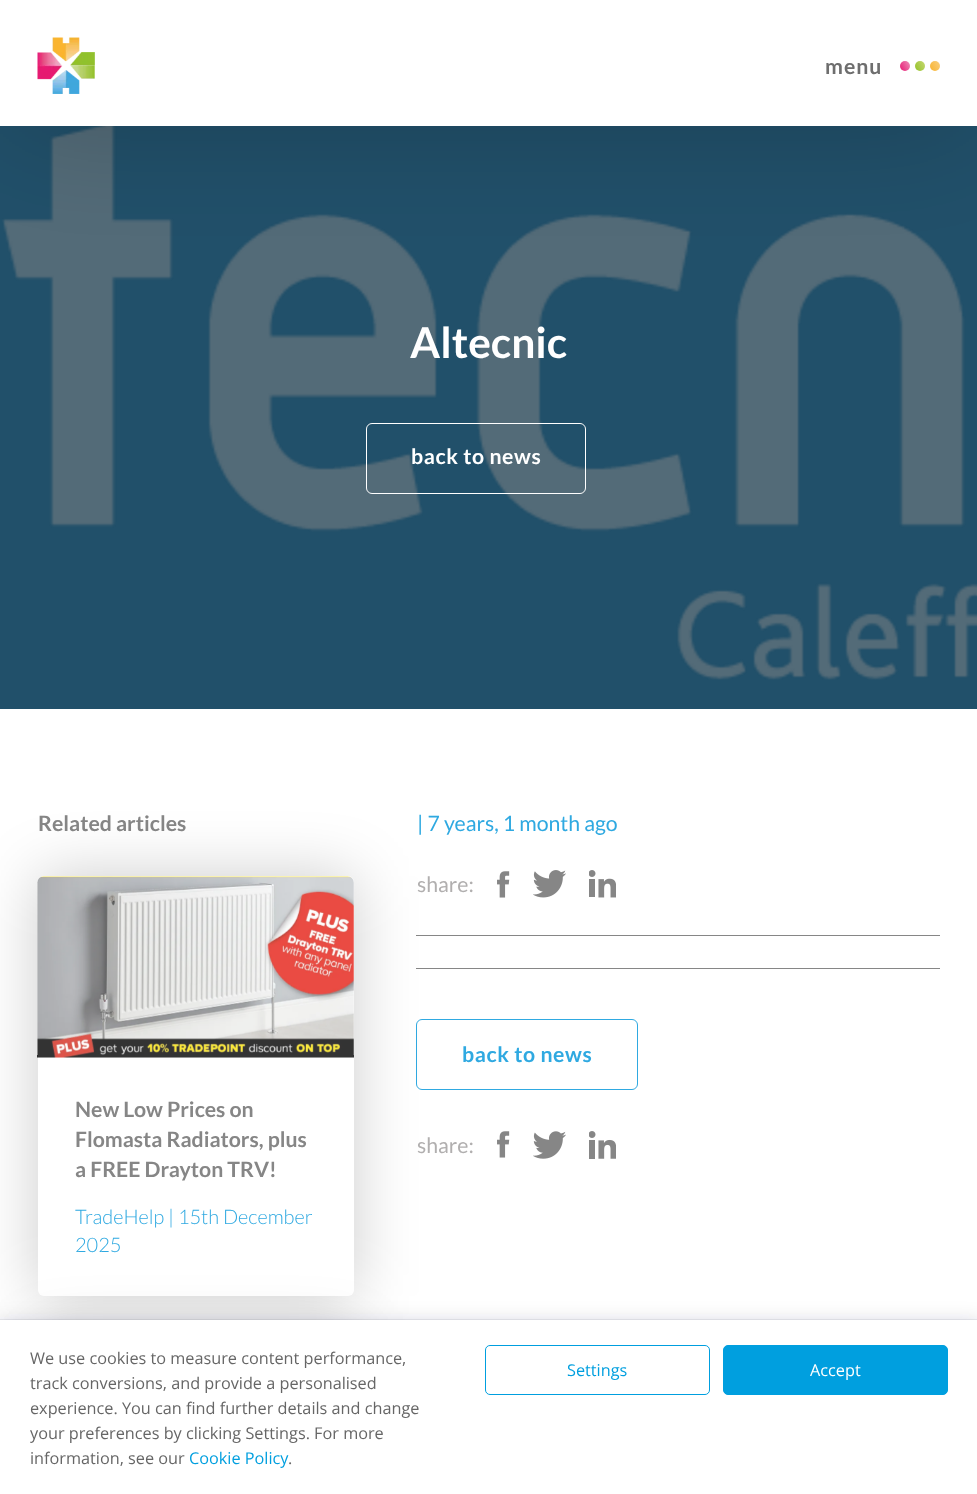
<svg xmlns="http://www.w3.org/2000/svg" width="977" height="1494" viewBox="0 0 977 1494">
  <defs>
    <filter id="blur1" x="-50%" y="-200%" width="200%" height="500%"><feGaussianBlur stdDeviation="62.5"/></filter>
    <linearGradient id="g1" gradientUnits="userSpaceOnUse" x1="899" y1="70" x2="911" y2="63"><stop offset="0" stop-color="#e61671"/><stop offset="1" stop-color="#ee8db8"/></linearGradient>
    <linearGradient id="g2" gradientUnits="userSpaceOnUse" x1="914" y1="70" x2="926" y2="63"><stop offset="0" stop-color="#93c127"/><stop offset="1" stop-color="#c6d872"/></linearGradient>
    <linearGradient id="g3" gradientUnits="userSpaceOnUse" x1="929" y1="70" x2="941" y2="63"><stop offset="0" stop-color="#f8b22d"/><stop offset="1" stop-color="#f9cf7e"/></linearGradient>
    <filter id="blur2" x="-50%" y="-200%" width="200%" height="500%"><feGaussianBlur stdDeviation="31"/></filter>
    <filter id="blur3" x="-50%" y="-200%" width="200%" height="500%"><feGaussianBlur stdDeviation="12.5"/></filter>
  </defs>
  <rect width="100%" height="100%" fill="#ffffff"/>
  <rect x="0" y="126" width="977" height="583" fill="#21506a"/>
  <image x="2" y="126" width="975" height="554" href="img2.png"/>
  <rect x="0" y="0" width="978" height="126" fill="#000000" fill-opacity="0.2" filter="url(#blur1)"/>
  <rect x="0" y="0" width="977" height="126" fill="#ffffff"/>
  <image x="37" y="37" width="58" height="57" href="img1.png"/>
  <text x="825" y="74" font-family="Lato" font-size="21.25" font-weight="bold" letter-spacing="1" fill="#6e6e6e">menu</text>
  <circle cx="905" cy="66" r="5" fill="url(#g1)"/>
  <circle cx="920" cy="66" r="5" fill="url(#g2)"/>
  <circle cx="935" cy="66" r="5" fill="url(#g3)"/>
  <text x="410" y="358" font-family="Lato" font-size="42.5" font-weight="bold" fill="#ffffff">Altecnic</text>
  <rect x="366.5" y="423.5" width="219" height="70" rx="5.5" fill="none" stroke="#ffffff"/>
  <text x="411" y="464" font-family="Lato" font-size="21.25" font-weight="bold" letter-spacing="0.6" fill="#ffffff">back to news</text>
  <text x="38" y="831" font-family="Lato" font-size="21.25" font-weight="bold" fill="#868686">Related articles</text>
  <rect x="416" y="935" width="524" height="1" fill="#868686"/>
  <rect x="416" y="968" width="524" height="1" fill="#868686"/>
  <rect x="416.5" y="1019.5" width="221" height="70" rx="5.5" fill="none" stroke="#2fa9e1"/>
  <rect x="38" y="876" width="316" height="420" rx="6" fill="#000000" fill-opacity="0.2" filter="url(#blur2)"/>
  <rect x="38" y="876" width="316" height="420" rx="6" fill="#ffffff"/>
  <image x="37" y="876" width="317" height="182" href="img3.png"/>
  <text x="75" y="1117" font-family="Lato" font-size="21.25" font-weight="bold" fill="#868686">New Low Prices on</text>
  <text x="75" y="1147" font-family="Lato" font-size="21.25" font-weight="bold" fill="#868686">Flomasta Radiators, plus</text>
  <text x="75" y="1177" font-family="Lato" font-size="21.25" font-weight="bold" fill="#868686">a FREE Drayton TRV!</text>
  <text x="75" y="1224" font-family="Lato" font-size="20" font-weight="300" fill="#2fa9e1">TradeHelp | 15th December</text>
  <text x="75" y="1252" font-family="Lato" font-size="20" font-weight="300" fill="#2fa9e1">2025</text>
  <rect x="38" y="1340" width="316" height="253" rx="6" fill="#000000" fill-opacity="0.2" filter="url(#blur2)"/>
  <text x="417" y="831" font-family="Lato" font-size="21.25" fill="#2fa9e1">| 7 years, 1 month ago</text>
  <text x="417" y="892" font-family="Lato" font-size="21.25" fill="#b1afaf">share:</text>
  <image x="497" y="871" width="13" height="27" href="img4.png"/>
  <image x="533" y="870" width="33" height="28" href="img5.png"/>
  <image x="589" y="870" width="27" height="28" href="img6.png"/>
  <text x="462" y="1062" font-family="Lato" font-size="21.25" font-weight="bold" letter-spacing="0.6" fill="#2fa9e1">back to news</text>
  <text x="417" y="1153" font-family="Lato" font-size="21.25" fill="#b1afaf">share:</text>
  <image x="497" y="1131" width="13" height="27" href="img7.png"/>
  <image x="533" y="1131" width="33" height="28" href="img8.png"/>
  <image x="589" y="1131" width="27" height="28" href="img9.png"/>
  <rect x="-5" y="1328" width="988" height="160" fill="#242f42" fill-opacity="0.31" filter="url(#blur3)"/>
  <rect x="-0.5" y="1319.5" width="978" height="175" fill="none" stroke="#242f42" stroke-opacity="0.08"/>
  <rect x="0" y="1320" width="977" height="174" fill="#ffffff"/>
  <text x="30" y="1364" font-family="Open Sans" font-size="16.25" fill="#666666">We use cookies to measure content performance,</text>
  <text x="30" y="1389" font-family="Open Sans" font-size="16.25" fill="#666666">track conversions, and provide a personalised</text>
  <text x="30" y="1414" font-family="Open Sans" font-size="16.25" fill="#666666">experience. You can find further details and change</text>
  <text x="30" y="1439" font-family="Open Sans" font-size="16.25" fill="#666666">your preferences by clicking Settings. For more</text>
  <text x="30" y="1464" font-family="Open Sans" font-size="16.25" fill="#666666">information, see our</text>
  <text x="189" y="1464" font-family="Open Sans" font-size="16.25" fill="#009fdf">Cookie Policy</text>
  <text x="288" y="1464" font-family="Open Sans" font-size="16.25" fill="#666666">.</text>
  <rect x="485.5" y="1345.5" width="224" height="49" rx="4.5" fill="none" stroke="#009fdf"/>
  <text x="567" y="1376" font-family="Open Sans" font-size="16.25" fill="#009fdf">Settings</text>
  <rect x="723.5" y="1345.5" width="224" height="49" rx="4.5" fill="#009fdf" stroke="#009fdf"/>
  <text x="810" y="1376" font-family="Open Sans" font-size="16.25" fill="#ffffff">Accept</text>
</svg>
